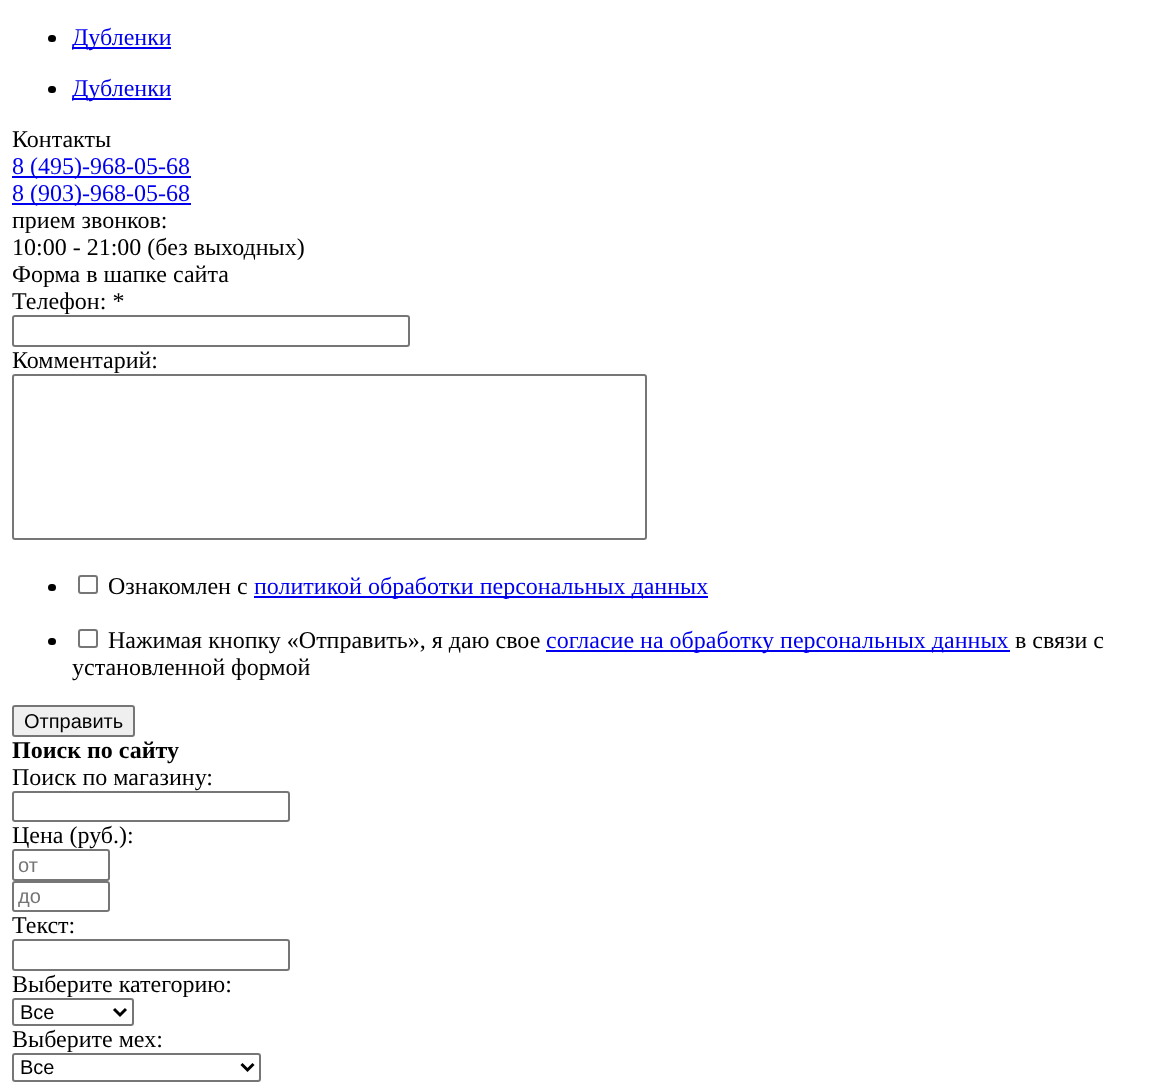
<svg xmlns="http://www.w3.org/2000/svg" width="1167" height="1086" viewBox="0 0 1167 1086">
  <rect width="100%" height="100%" fill="#ffffff"/>
  <rect x="48" y="35" width="8" height="7" rx="3.5" fill="#000000"/>
  <rect x="72" y="47" width="99" height="2" fill="#0000ee"/>
  <text x="72" y="45" font-family="Liberation Serif" font-size="24" fill="#0000ee">Дубленки</text>
  <rect x="48" y="86" width="8" height="7" rx="3.5" fill="#000000"/>
  <rect x="72" y="98" width="99" height="2" fill="#0000ee"/>
  <text x="72" y="96" font-family="Liberation Serif" font-size="24" fill="#0000ee">Дубленки</text>
  <text x="12" y="147" font-family="Liberation Serif" font-size="24" fill="#000000">Контакты</text>
  <rect x="12" y="176" width="179" height="2" fill="#0000ee"/>
  <text x="12" y="174" font-family="Liberation Serif" font-size="24" fill="#0000ee">8 (495)-968-05-68</text>
  <rect x="12" y="203" width="179" height="2" fill="#0000ee"/>
  <text x="12" y="201" font-family="Liberation Serif" font-size="24" fill="#0000ee">8 (903)-968-05-68</text>
  <text x="12" y="228" font-family="Liberation Serif" font-size="24" fill="#000000">прием звонков:</text>
  <text x="12" y="255" font-family="Liberation Serif" font-size="24" fill="#000000">10:00 - 21:00 (без выходных)</text>
  <text x="12" y="282" font-family="Liberation Serif" font-size="24" fill="#000000">Форма в шапке сайта</text>
  <text x="12" y="309" font-family="Liberation Serif" font-size="24" fill="#000000">Телефон: *</text>
  <rect x="13" y="316" width="396" height="30" rx="2" fill="none" stroke="#767676" stroke-width="2"/>
  <text x="12" y="368" font-family="Liberation Serif" font-size="24" fill="#000000">Комментарий:</text>
  <rect x="13" y="375" width="633" height="164" rx="2" fill="none" stroke="#767676" stroke-width="2"/>
  <rect x="48" y="584" width="8" height="7" rx="3.5" fill="#000000"/>
  <rect x="79" y="576" width="18" height="17" rx="2" fill="none" stroke="#767676" stroke-width="2"/>
  <text x="108" y="594" font-family="Liberation Serif" font-size="24" fill="#000000">Ознакомлен с</text>
  <rect x="254" y="596" width="454" height="2" fill="#0000ee"/>
  <text x="254" y="594" font-family="Liberation Serif" font-size="24" fill="#0000ee">политикой обработки персональных данных</text>
  <rect x="48" y="638" width="8" height="7" rx="3.5" fill="#000000"/>
  <rect x="79" y="630" width="18" height="17" rx="2" fill="none" stroke="#767676" stroke-width="2"/>
  <text x="108" y="648" font-family="Liberation Serif" font-size="24" fill="#000000">Нажимая кнопку «Отправить», я даю свое</text>
  <rect x="546" y="650" width="464" height="2" fill="#0000ee"/>
  <text x="546" y="648" font-family="Liberation Serif" font-size="24" fill="#0000ee">согласие на обработку персональных данных</text>
  <text x="1015" y="648" font-family="Liberation Serif" font-size="24" fill="#000000">в связи с</text>
  <text x="72" y="675" font-family="Liberation Serif" font-size="24" fill="#000000">установленной формой</text>
  <rect x="13" y="706" width="121" height="30" rx="2" fill="#efefef" stroke="#767676" stroke-width="2"/>
  <text x="24" y="728" font-family="Liberation Sans" font-size="20" fill="#000000">Отправить</text>
  <text x="12" y="758" font-family="Liberation Serif" font-size="24" font-weight="bold" fill="#000000">Поиск по сайту</text>
  <text x="12" y="785" font-family="Liberation Serif" font-size="24" fill="#000000">Поиск по магазину:</text>
  <rect x="13" y="792" width="276" height="29" rx="2" fill="none" stroke="#767676" stroke-width="2"/>
  <text x="12" y="843" font-family="Liberation Serif" font-size="24" fill="#000000">Цена (руб.):</text>
  <rect x="13" y="850" width="96" height="30" rx="2" fill="none" stroke="#767676" stroke-width="2"/>
  <text x="18" y="872" font-family="Liberation Sans" font-size="20" fill="#757575">от</text>
  <rect x="13" y="882" width="96" height="29" rx="2" fill="none" stroke="#767676" stroke-width="2"/>
  <text x="18" y="903" font-family="Liberation Sans" font-size="20" fill="#757575">до</text>
  <text x="12" y="933" font-family="Liberation Serif" font-size="24" fill="#000000">Текст:</text>
  <rect x="13" y="940" width="276" height="30" rx="2" fill="none" stroke="#767676" stroke-width="2"/>
  <text x="12" y="992" font-family="Liberation Serif" font-size="24" fill="#000000">Выберите категорию:</text>
  <rect x="13" y="999" width="120" height="26" rx="2" fill="none" stroke="#767676" stroke-width="2"/>
  <path d="M114 1009L120 1015L126 1009" fill="none" stroke="#000000" stroke-width="3"/>
  <text x="20" y="1019" font-family="Liberation Sans" font-size="20" fill="#000000">Все</text>
  <text x="12" y="1047" font-family="Liberation Serif" font-size="24" fill="#000000">Выберите мех:</text>
  <rect x="13" y="1054" width="247" height="27" rx="2" fill="none" stroke="#767676" stroke-width="2"/>
  <path d="M241.5 1064L247.5 1070L253.5 1064" fill="none" stroke="#000000" stroke-width="3"/>
  <text x="20" y="1074" font-family="Liberation Sans" font-size="20" fill="#000000">Все</text>
</svg>
